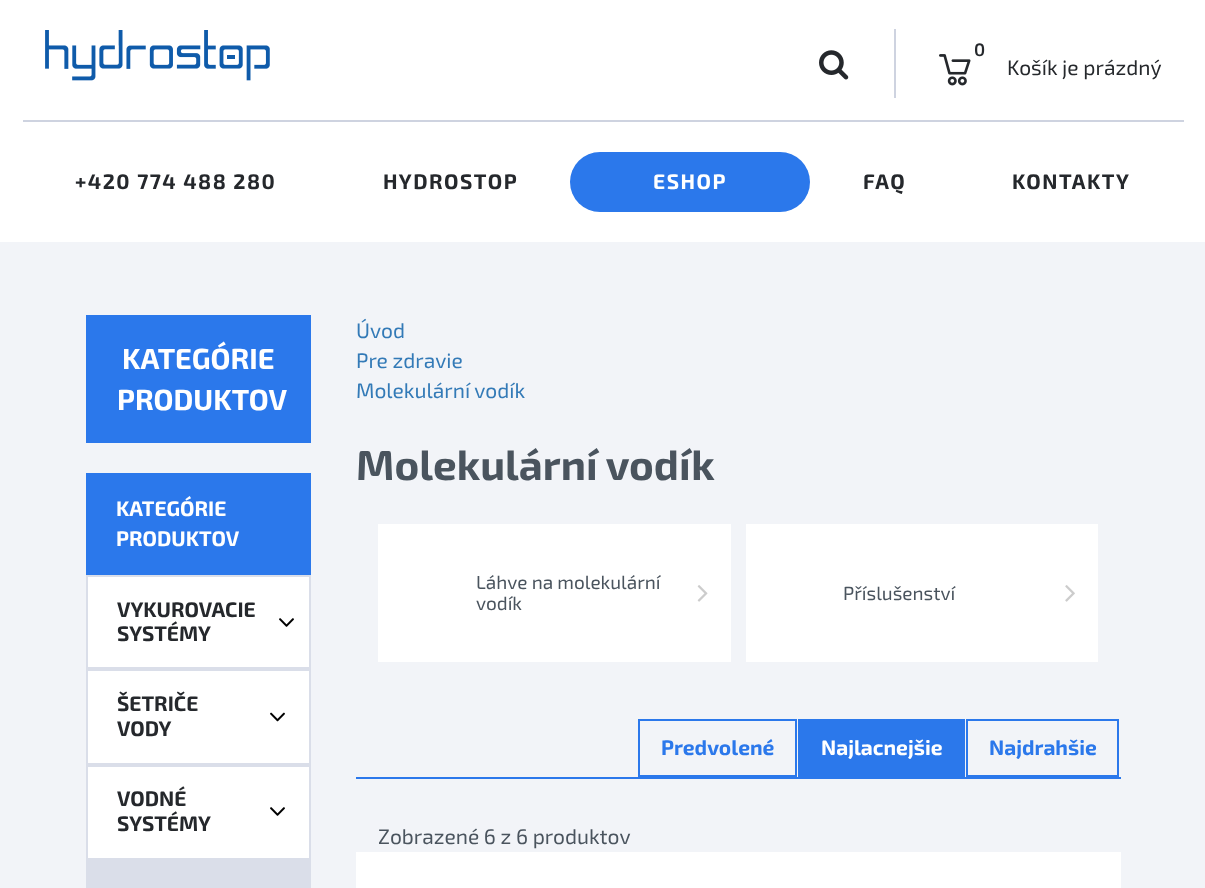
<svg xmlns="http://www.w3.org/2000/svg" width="1205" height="888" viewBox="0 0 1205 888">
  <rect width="100%" height="100%" fill="#f2f4f8"/>
  <rect x="0" y="0" width="1205" height="242" fill="#ffffff"/>
  <image x="45" y="30" width="225" height="51" href="img1.png"/>
  <rect x="23" y="120" width="1161" height="2" fill="#ced3e0"/>
  <rect x="894" y="29" width="2" height="69" fill="#ced3e0"/>
  <image x="819" y="50" width="30" height="30" href="img2.png"/>
  <text x="974" y="56" font-family="'Exo 2'" font-size="18" font-weight="600" fill="#25282c">0</text>
  <image x="939" y="54" width="32" height="32" href="img3.png"/>
  <text x="1007" y="75" font-family="'Exo 2'" font-size="21" fill="#25282c">Košík je prázdný</text>
  <text x="75" y="189" font-family="'Exo 2'" font-size="21" font-weight="bold" letter-spacing="1.5" fill="#25282c">+420 774 488 280</text>
  <text x="383" y="189" font-family="'Exo 2'" font-size="21" font-weight="bold" letter-spacing="1.5" fill="#25282c">HYDROSTOP</text>
  <rect x="570" y="152" width="240" height="60" rx="30" fill="#2b78eb"/>
  <text x="653" y="189" font-family="'Exo 2'" font-size="21" font-weight="bold" letter-spacing="1.5" fill="#ffffff">ESHOP</text>
  <text x="863" y="189" font-family="'Exo 2'" font-size="21" font-weight="bold" letter-spacing="1.5" fill="#25282c">FAQ</text>
  <text x="1012" y="189" font-family="'Exo 2'" font-size="21" font-weight="bold" letter-spacing="1.5" fill="#25282c">KONTAKTY</text>
  <rect x="86" y="315" width="225" height="128" fill="#2b78eb"/>
  <text x="122" y="369" font-family="'Exo 2'" font-size="29" font-weight="bold" fill="#ffffff">KATEGÓRIE</text>
  <text x="117" y="410" font-family="'Exo 2'" font-size="29" font-weight="bold" fill="#ffffff">PRODUKTOV</text>
  <rect x="86" y="473" width="225" height="102" fill="#2b78eb"/>
  <text x="116" y="516" font-family="'Exo 2'" font-size="21" font-weight="bold" fill="#ffffff">KATEGÓRIE</text>
  <text x="116" y="546" font-family="'Exo 2'" font-size="21" font-weight="bold" fill="#ffffff">PRODUKTOV</text>
  <rect x="87" y="576" width="223" height="92" fill="#ffffff" stroke="#dadee9" stroke-width="2"/>
  <text x="117" y="617" font-family="'Exo 2'" font-size="21" font-weight="bold" fill="#25282c">VYKUROVACIE</text>
  <text x="117" y="641" font-family="'Exo 2'" font-size="21" font-weight="bold" fill="#25282c">SYSTÉMY</text>
  <image x="279" y="618" width="15" height="9" href="img4.png"/>
  <rect x="87" y="670" width="223" height="94" fill="#ffffff" stroke="#dadee9" stroke-width="2"/>
  <text x="117" y="711" font-family="'Exo 2'" font-size="21" font-weight="bold" fill="#25282c">ŠETRIČE</text>
  <text x="117" y="736" font-family="'Exo 2'" font-size="21" font-weight="bold" fill="#25282c">VODY</text>
  <image x="270" y="712" width="15" height="10" href="img5.png"/>
  <rect x="87" y="766" width="223" height="93" fill="#ffffff" stroke="#dadee9" stroke-width="2"/>
  <text x="117" y="806" font-family="'Exo 2'" font-size="21" font-weight="bold" fill="#25282c">VODNÉ</text>
  <text x="117" y="831" font-family="'Exo 2'" font-size="21" font-weight="bold" fill="#25282c">SYSTÉMY</text>
  <image x="270" y="807" width="15" height="9" href="img4.png"/>
  <rect x="86" y="860" width="225" height="28" fill="#dadee9"/>
  <text x="356" y="338" font-family="'Exo 2'" font-size="21" fill="#337ab7">Úvod</text>
  <text x="356" y="368" font-family="'Exo 2'" font-size="21" fill="#337ab7">Pre zdravie</text>
  <text x="356" y="398" font-family="'Exo 2'" font-size="21" fill="#337ab7">Molekulární vodík</text>
  <text x="356" y="480" font-family="'Exo 2'" font-size="42" font-weight="bold" fill="#4a545e">Molekulární vodík</text>
  <rect x="378" y="524" width="353" height="138" fill="#ffffff"/>
  <text x="476" y="589" font-family="'Exo 2'" font-size="19" fill="#4a545e">Láhve na molekulární</text>
  <image x="697" y="585" width="11" height="17" href="img6.png"/>
  <text x="476" y="610" font-family="'Exo 2'" font-size="19" fill="#4a545e">vodík</text>
  <rect x="746" y="524" width="352" height="138" fill="#ffffff"/>
  <text x="843" y="600" font-family="'Exo 2'" font-size="19" fill="#4a545e">Příslušenství</text>
  <image x="1065" y="585" width="10" height="17" href="img7.png"/>
  <rect x="356" y="777" width="765" height="2" fill="#2b78eb"/>
  <rect x="639" y="720" width="157" height="56" fill="none" stroke="#2b78eb" stroke-width="2"/>
  <text x="661" y="755" font-family="'Exo 2'" font-size="21" font-weight="bold" fill="#2b78eb">Predvolené</text>
  <rect x="798" y="719" width="167" height="58" fill="#2b78eb"/>
  <text x="821" y="755" font-family="'Exo 2'" font-size="21" font-weight="bold" fill="#ffffff">Najlacnejšie</text>
  <rect x="967" y="720" width="151" height="56" fill="none" stroke="#2b78eb" stroke-width="2"/>
  <text x="989" y="755" font-family="'Exo 2'" font-size="21" font-weight="bold" fill="#2b78eb">Najdrahšie</text>
  <text x="378" y="844" font-family="'Exo 2'" font-size="21" fill="#4a545e">Zobrazené 6 z 6 produktov</text>
  <rect x="356" y="852" width="765" height="36" fill="#ffffff"/>
</svg>
